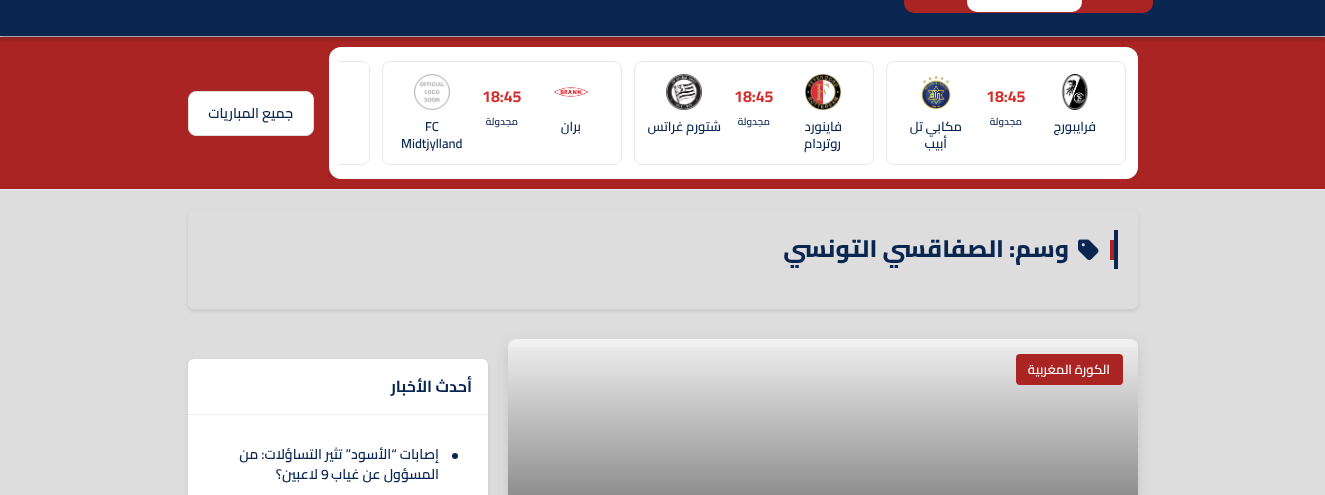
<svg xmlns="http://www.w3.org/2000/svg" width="1325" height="495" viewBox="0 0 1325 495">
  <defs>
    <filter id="blur1" x="-50%" y="-200%" width="200%" height="500%"><feGaussianBlur stdDeviation="2"/></filter>
    <clipPath id="clip1"><rect x="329" y="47" width="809" height="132"/></clipPath>
    <filter id="blur2" x="-50%" y="-200%" width="200%" height="500%"><feGaussianBlur stdDeviation="7.5"/></filter>
    <clipPath id="clip2"><rect x="339" y="57" width="789" height="112"/></clipPath>
    <clipPath id="clip3"><path d="M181 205H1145V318H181ZM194 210H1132C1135.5 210 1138 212.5 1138 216V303C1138 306.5 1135.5 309 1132 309H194C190.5 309 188 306.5 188 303V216C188 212.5 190.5 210 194 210Z" clip-rule="evenodd"/></clipPath>
    <linearGradient id="g1" gradientUnits="userSpaceOnUse" x1="823" y1="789" x2="823" y2="339"><stop offset="0" stop-color="#000000" stop-opacity="0.9"/><stop offset="0.4" stop-color="#000000" stop-opacity="0.7"/><stop offset="1" stop-color="#000000" stop-opacity="0"/></linearGradient>
  </defs>
  <rect width="100%" height="100%" fill="#dddddd"/>
  <rect x="0" y="37" width="1325" height="152" fill="#a92422"/>
  <rect x="0" y="36" width="1325" height="1" fill="#e9e9e9"/>
  <rect x="0" y="-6" width="1325" height="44" fill="#202020" fill-opacity="0.45" filter="url(#blur1)"/>
  <rect x="0" y="189" width="1325" height="1" fill="#e9e9e9"/>
  <rect x="188.5" y="91.5" width="125" height="44" rx="7.5" fill="#ffffff" stroke="#dddddd"/>
  <g clip-path="url(#clip1)">
    <rect x="329" y="51" width="809" height="132" rx="12" fill="#000000" fill-opacity="0.07" filter="url(#blur2)"/>
  </g>
  <rect x="0" y="0" width="1325" height="36" fill="#092651"/>
  <rect x="904" y="-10" width="249" height="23" rx="10" fill="#a92422"/>
  <rect x="967" y="-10" width="115" height="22" rx="10" fill="#ffffff"/>
  <rect x="329" y="47" width="809" height="132" rx="12" fill="#ffffff"/>
  <rect x="886.5" y="61.5" width="239" height="103" rx="7.5" fill="none" stroke="#e9e9e9"/>
  <text x="986" y="102" font-family="Cairo" font-size="16" font-weight="bold" fill="#d32f2f">18:45</text>
  <text x="1022" y="125" font-family="Cairo" font-size="10" font-weight="600" direction="rtl" fill="#092651">مجدولة</text>
  <image x="1061" y="74" width="28" height="36" href="img1.png"/>
  <text x="1096" y="131" font-family="Cairo" font-size="13" font-weight="600" direction="rtl" fill="#092651">فرايبورج</text>
  <image x="921" y="75" width="30" height="35" href="img2.png"/>
  <text x="962" y="131" font-family="Cairo" font-size="13" font-weight="600" direction="rtl" fill="#092651">مكابي تل</text>
  <text x="947" y="148" font-family="Cairo" font-size="13" font-weight="600" direction="rtl" fill="#092651">أبيب</text>
  <rect x="634.5" y="61.5" width="239" height="103" rx="7.5" fill="none" stroke="#e9e9e9"/>
  <image x="805" y="74" width="36" height="36" href="img3.png"/>
  <text x="842" y="131" font-family="Cairo" font-size="13" font-weight="600" direction="rtl" fill="#092651">فاينورد</text>
  <text x="841" y="148" font-family="Cairo" font-size="13" font-weight="600" direction="rtl" fill="#092651">روتردام</text>
  <text x="734" y="102" font-family="Cairo" font-size="16" font-weight="bold" fill="#d32f2f">18:45</text>
  <text x="770" y="125" font-family="Cairo" font-size="10" font-weight="600" direction="rtl" fill="#092651">مجدولة</text>
  <image x="666" y="74" width="36" height="36" href="img4.png"/>
  <text x="721" y="131" font-family="Cairo" font-size="13" font-weight="600" direction="rtl" fill="#092651">شتورم غراتس</text>
  <rect x="382.5" y="61.5" width="239" height="103" rx="7.5" fill="none" stroke="#e9e9e9"/>
  <text x="482" y="102" font-family="Cairo" font-size="16" font-weight="bold" fill="#d32f2f">18:45</text>
  <text x="518" y="125" font-family="Cairo" font-size="10" font-weight="600" direction="rtl" fill="#092651">مجدولة</text>
  <image x="554" y="87" width="35" height="10" href="img5.png"/>
  <text x="581" y="131" font-family="Cairo" font-size="13" font-weight="600" direction="rtl" fill="#092651">بران</text>
  <image x="414" y="74" width="36" height="36" href="img6.png"/>
  <text x="425" y="131" font-family="Cairo" font-size="13" font-weight="600" fill="#092651">FC</text>
  <text x="401" y="148" font-family="Cairo" font-size="13" font-weight="600" fill="#092651">Midtjylland</text>
  <g clip-path="url(#clip2)">
    <path d="M329 165H362C366 165 370 161 370 157V69C370 65 366 61 362 61H329V62H362C366 62 369 65 369 69V157C369 161 366 164 362 164H329Z" fill="#e9e9e9"/>
  </g>
  <text x="293" y="118" font-family="Cairo" font-size="14" font-weight="600" direction="rtl" fill="#092651">جميع المباريات</text>
  <g clip-path="url(#clip3)">
    <rect x="188" y="212" width="950" height="99" rx="6" fill="#000000" fill-opacity="0.1" filter="url(#blur1)"/>
  </g>
  <rect x="1114" y="230" width="4" height="39" fill="#092651"/>
  <rect x="1110" y="240" width="4" height="20" fill="#a92422"/>
  <image x="1078" y="239" width="21" height="21" href="img7.png"/>
  <text x="1069" y="257" font-family="Cairo" font-size="24" font-weight="800" direction="rtl" fill="#092651">وسم:</text>
  <text x="1004" y="257" font-family="Cairo" font-size="24" font-weight="800" direction="rtl" fill="#092651">الصفاقسي التونسي</text>
  <rect x="508" y="343" width="630" height="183" rx="8" fill="#000000" fill-opacity="0.1" filter="url(#blur2)"/>
  <rect x="508" y="339" width="630" height="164" rx="8" fill="#f0f0f0"/>
  <rect x="508" y="347" width="630" height="148" fill="url(#g1)"/>
  <rect x="1016" y="354" width="107" height="31" rx="4" fill="#a92422"/>
  <text x="1110" y="374" font-family="Cairo" font-size="13" font-weight="600" direction="rtl" fill="#ffffff">الكورة المغربية</text>
  <rect x="188" y="361" width="300" height="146" rx="6" fill="#000000" fill-opacity="0.1" filter="url(#blur1)"/>
  <rect x="188" y="359" width="300" height="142" rx="6" fill="#ffffff"/>
  <rect x="188" y="414" width="300" height="1" fill="#eeeeee"/>
  <text x="472" y="392" font-family="Cairo" font-size="16" font-weight="bold" direction="rtl" fill="#092651">أحدث الأخبار</text>
  <circle cx="455" cy="456" r="3" fill="#092651"/>
  <text x="439" y="459" font-family="Cairo" font-size="14" font-weight="600" direction="rtl" fill="#092651">إصابات “الأسود” تثير التساؤلات: من</text>
  <text x="439" y="479" font-family="Cairo" font-size="14" font-weight="600" direction="rtl" fill="#092651">المسؤول عن غياب</text>
  <text x="321" y="479" font-family="Cairo" font-size="14" font-weight="600" fill="#092651">9</text>
  <text x="318" y="479" font-family="Cairo" font-size="14" font-weight="600" direction="rtl" fill="#092651">لاعبين؟</text>
</svg>
